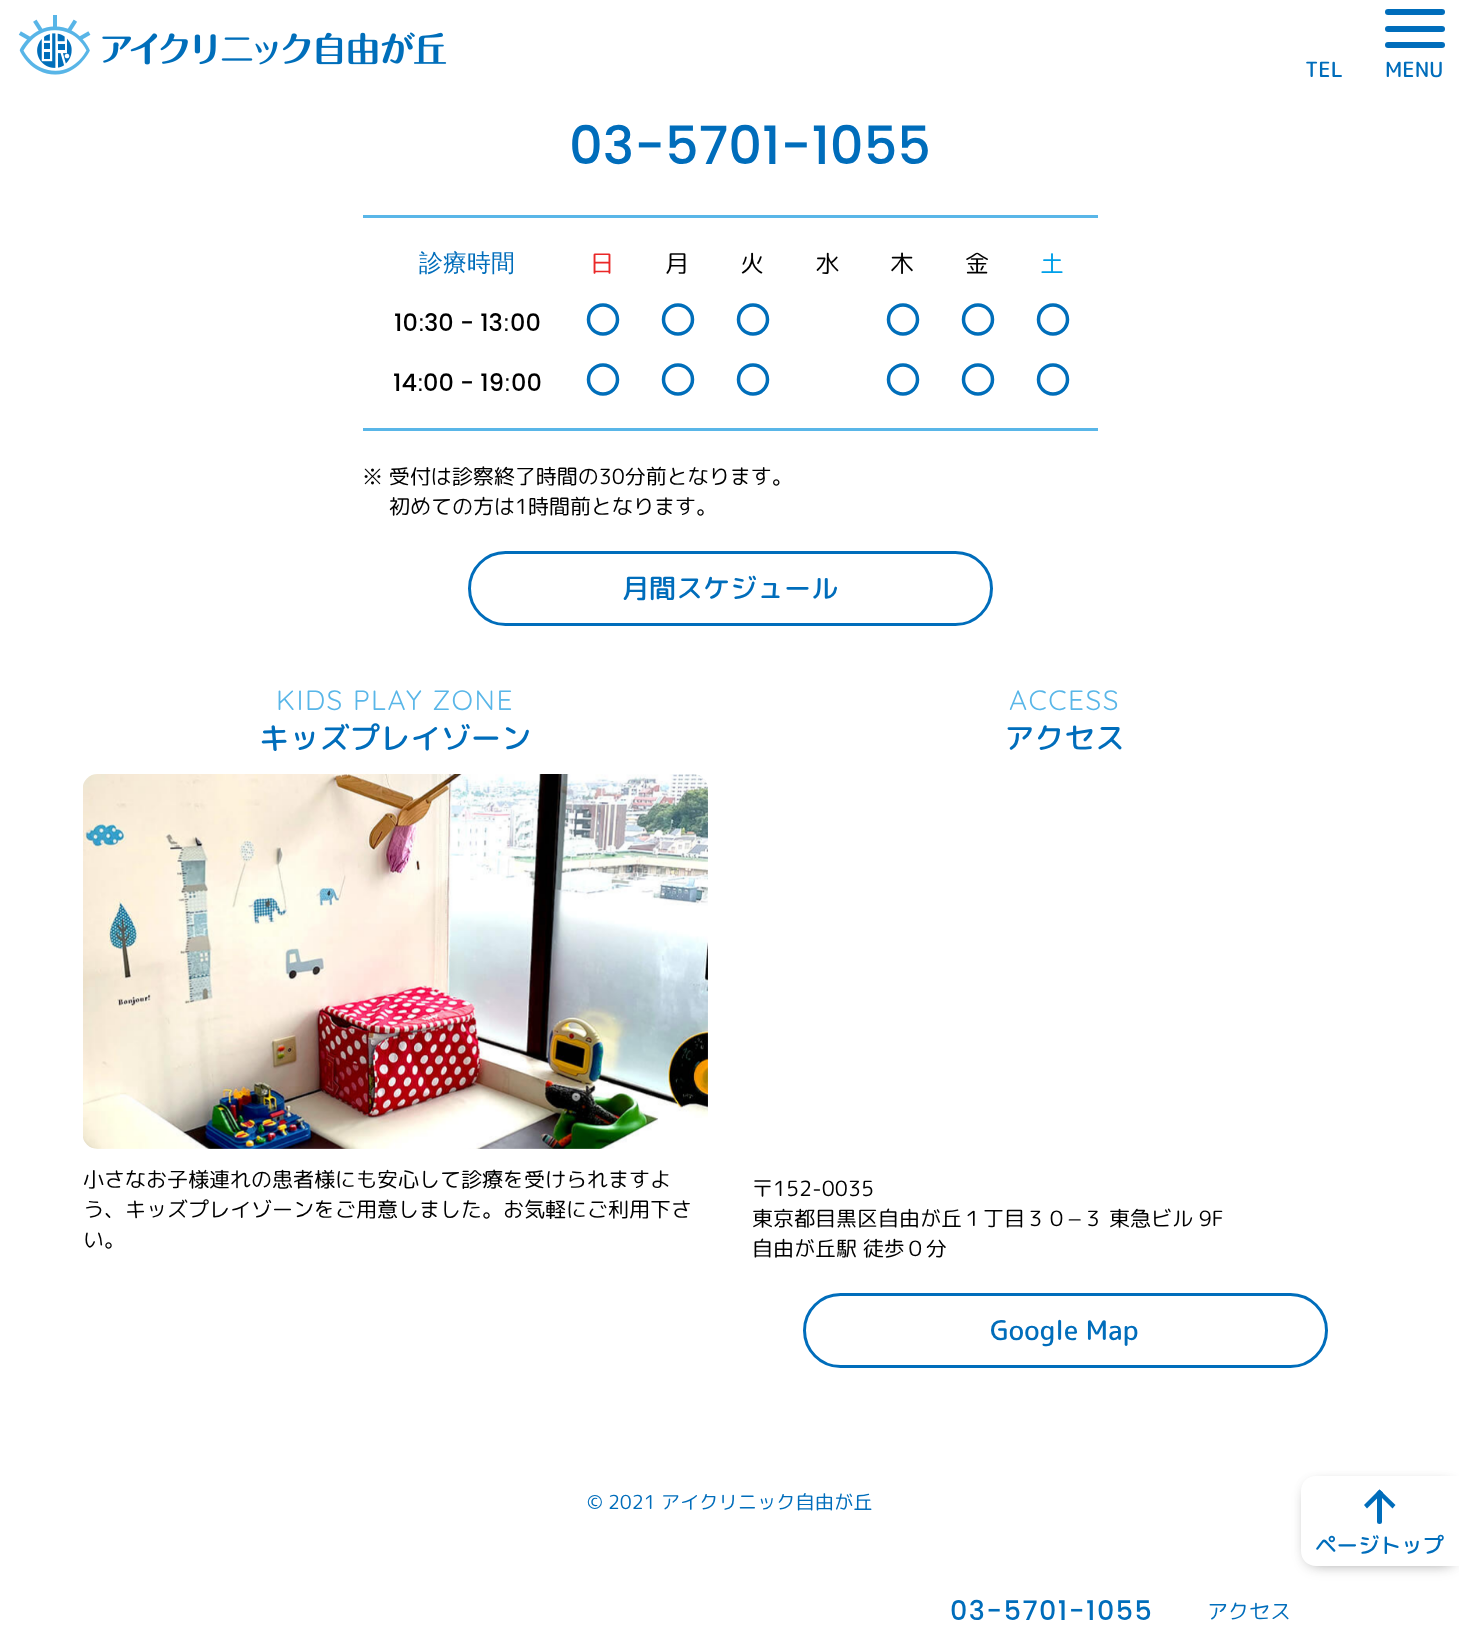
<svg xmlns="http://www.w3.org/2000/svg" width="1459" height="1640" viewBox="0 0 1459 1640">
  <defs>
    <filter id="blur1" x="-50%" y="-200%" width="200%" height="500%"><feGaussianBlur stdDeviation="7.5"/></filter>
  </defs>
  <rect width="100%" height="100%" fill="#ffffff"/>
  <image x="18" y="15" width="429" height="60" href="img1.png"/>
  <text x="1305" y="77" font-family="'Rounded Mplus 1c'" font-size="21" font-weight="500" fill="#006dbb">TEL</text>
  <rect x="1385" y="9" width="60" height="6" rx="3" fill="#006dbb"/>
  <rect x="1385" y="26" width="60" height="6" rx="3" fill="#006dbb"/>
  <rect x="1385" y="42" width="60" height="6" rx="3" fill="#006dbb"/>
  <text x="1385" y="77" font-family="'Rounded Mplus 1c'" font-size="21" font-weight="500" fill="#006dbb">MENU</text>
  <rect x="1307" y="1487" width="147" height="78" rx="9" fill="#000000" fill-opacity="0.2" filter="url(#blur1)"/>
  <rect x="1311" y="1487" width="141" height="72" rx="6" fill="#000000" fill-opacity="0.5" filter="url(#blur1)"/>
  <path d="M1316 1476H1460V1566H1316C1307.5 1566 1301 1559.5 1301 1551V1491C1301 1482.5 1307.5 1476 1316 1476Z" fill="#ffffff"/>
  <rect x="1377" y="1494" width="5" height="30" rx="2.5" fill="#006dbb"/>
  <path d="M1364 1505L1379.5 1489.5L1383 1492.5L1367 1508.5Z" fill="#006dbb"/>
  <path d="M1376.5 1492.5L1379.5 1489.5L1395.5 1505L1392.5 1508.5Z" fill="#006dbb"/>
  <text x="1315" y="1553" font-family="'Rounded Mplus 1c'" font-size="21.5" font-weight="500" fill="#006dbb">ページトップ</text>
  <text x="950" y="1620" font-family="Poppins" font-size="27" font-weight="500" letter-spacing="1.5" fill="#006dbb">03-5701-1055</text>
  <text x="1207" y="1619" font-family="'Rounded Mplus 1c'" font-size="21" fill="#006dbb">アクセス</text>
  <text x="569" y="164" font-family="Poppins" font-size="52.75" font-weight="500" fill="#006dbb">03-5701-1055</text>
  <rect x="363" y="215" width="735" height="3" fill="#59b6e8"/>
  <rect x="363" y="428" width="735" height="3" fill="#59b6e8"/>
  <text x="419" y="271" font-family="WenQuanYi Zen Hei" font-size="24" font-weight="500" fill="#006dbb">診療時間</text>
  <text x="590" y="272" font-family="'Rounded Mplus 1c'" font-size="24" fill="#ea2828">日</text>
  <text x="665" y="272" font-family="'Rounded Mplus 1c'" font-size="24" fill="#000000">月</text>
  <text x="740" y="272" font-family="'Rounded Mplus 1c'" font-size="24" fill="#000000">火</text>
  <text x="815" y="272" font-family="'Rounded Mplus 1c'" font-size="24" fill="#000000">水</text>
  <text x="890" y="272" font-family="'Rounded Mplus 1c'" font-size="24" fill="#000000">木</text>
  <text x="965" y="272" font-family="'Rounded Mplus 1c'" font-size="24" fill="#000000">金</text>
  <text x="1040" y="272" font-family="'Rounded Mplus 1c'" font-size="24" fill="#00a0e9">土</text>
  <text x="394" y="331" font-family="Poppins" font-size="24" font-weight="500" fill="#000000">10</text>
  <text x="418" y="331" font-family="Liberation Sans" font-size="24" fill="#000000">:</text>
  <text x="424" y="331" font-family="Poppins" font-size="24" font-weight="500" fill="#000000">30 - 13</text>
  <text x="503" y="331" font-family="Liberation Sans" font-size="24" fill="#000000">:</text>
  <text x="510" y="331" font-family="Poppins" font-size="24" font-weight="500" fill="#000000">00</text>
  <circle cx="603" cy="319.5" r="14.5" fill="none" stroke="#006eba" stroke-width="3.5"/>
  <circle cx="678" cy="319.5" r="14.5" fill="none" stroke="#006eba" stroke-width="3.5"/>
  <circle cx="753" cy="319.5" r="14.5" fill="none" stroke="#006eba" stroke-width="3.5"/>
  <circle cx="903" cy="319.5" r="14.5" fill="none" stroke="#006eba" stroke-width="3.5"/>
  <circle cx="978" cy="319.5" r="14.5" fill="none" stroke="#006eba" stroke-width="3.5"/>
  <circle cx="1053" cy="319.5" r="14.5" fill="none" stroke="#006eba" stroke-width="3.5"/>
  <text x="393" y="391" font-family="Poppins" font-size="24" font-weight="500" fill="#000000">14</text>
  <text x="417" y="391" font-family="Liberation Sans" font-size="24" fill="#000000">:</text>
  <text x="423" y="391" font-family="Poppins" font-size="24" font-weight="500" fill="#000000">00 - 19</text>
  <text x="504" y="391" font-family="Liberation Sans" font-size="24" fill="#000000">:</text>
  <text x="511" y="391" font-family="Poppins" font-size="24" font-weight="500" fill="#000000">00</text>
  <circle cx="603" cy="379.5" r="14.5" fill="none" stroke="#006eba" stroke-width="3.5"/>
  <circle cx="678" cy="379.5" r="14.5" fill="none" stroke="#006eba" stroke-width="3.5"/>
  <circle cx="753" cy="379.5" r="14.5" fill="none" stroke="#006eba" stroke-width="3.5"/>
  <circle cx="903" cy="379.5" r="14.5" fill="none" stroke="#006eba" stroke-width="3.5"/>
  <circle cx="978" cy="379.5" r="14.5" fill="none" stroke="#006eba" stroke-width="3.5"/>
  <circle cx="1053" cy="379.5" r="14.5" fill="none" stroke="#006eba" stroke-width="3.5"/>
  <text x="362" y="484" font-family="'Rounded Mplus 1c'" font-size="21" fill="#000000">※ 受付は診察終了時間の30分前となります。</text>
  <text x="389" y="514" font-family="'Rounded Mplus 1c'" font-size="21" fill="#000000">初めての方は1時間前となります。</text>
  <rect x="469.5" y="552.5" width="522" height="72" rx="36" fill="none" stroke="#006dbb" stroke-width="3"/>
  <text x="622" y="598" font-family="'Rounded Mplus 1c'" font-size="27" font-weight="500" fill="#006dbb">月間スケジュール</text>
  <text x="276" y="710" font-family="Quicksand" font-size="28" font-weight="300" letter-spacing="1.5" fill="#59b6e8">KIDS PLAY ZONE</text>
  <text x="259" y="749" font-family="'Rounded Mplus 1c'" font-size="30.25" font-weight="500" fill="#006dbb">キッズプレイゾーン</text>
  <image x="83" y="774" width="625" height="375" href="img2.png"/>
  <text x="83" y="1187" font-family="'Rounded Mplus 1c'" font-size="21" fill="#000000">小さなお子様連れの患者様にも安心して診療を受けられますよ</text>
  <text x="83" y="1217" font-family="'Rounded Mplus 1c'" font-size="21" fill="#000000">う、キッズプレイゾーンをご用意しました。お気軽にご利用下さ</text>
  <text x="83" y="1247" font-family="'Rounded Mplus 1c'" font-size="21" fill="#000000">い。</text>
  <text x="1009" y="710" font-family="Quicksand" font-size="28" font-weight="300" letter-spacing="1.5" fill="#59b6e8">ACCESS</text>
  <text x="1004" y="749" font-family="'Rounded Mplus 1c'" font-size="30.25" font-weight="500" fill="#006dbb">アクセス</text>
  <text x="752" y="1196" font-family="'Rounded Mplus 1c'" font-size="21" fill="#000000">〒152-0035</text>
  <text x="752" y="1226" font-family="'Rounded Mplus 1c'" font-size="21" fill="#000000">東京都目黒区自由が丘１丁目３０−３ 東急ビル 9F</text>
  <text x="752" y="1256" font-family="'Rounded Mplus 1c'" font-size="21" fill="#000000">自由が丘駅 徒歩０分</text>
  <rect x="804.5" y="1294.5" width="522" height="72" rx="36" fill="none" stroke="#006dbb" stroke-width="3"/>
  <text x="990" y="1340" font-family="'Rounded Mplus 1c'" font-size="27" font-weight="500" fill="#006dbb">Google Map</text>
  <text x="587" y="1509" font-family="'Rounded Mplus 1c'" font-size="19.25" fill="#006dbb">© 2021 アイクリニック自由が丘</text>
</svg>
